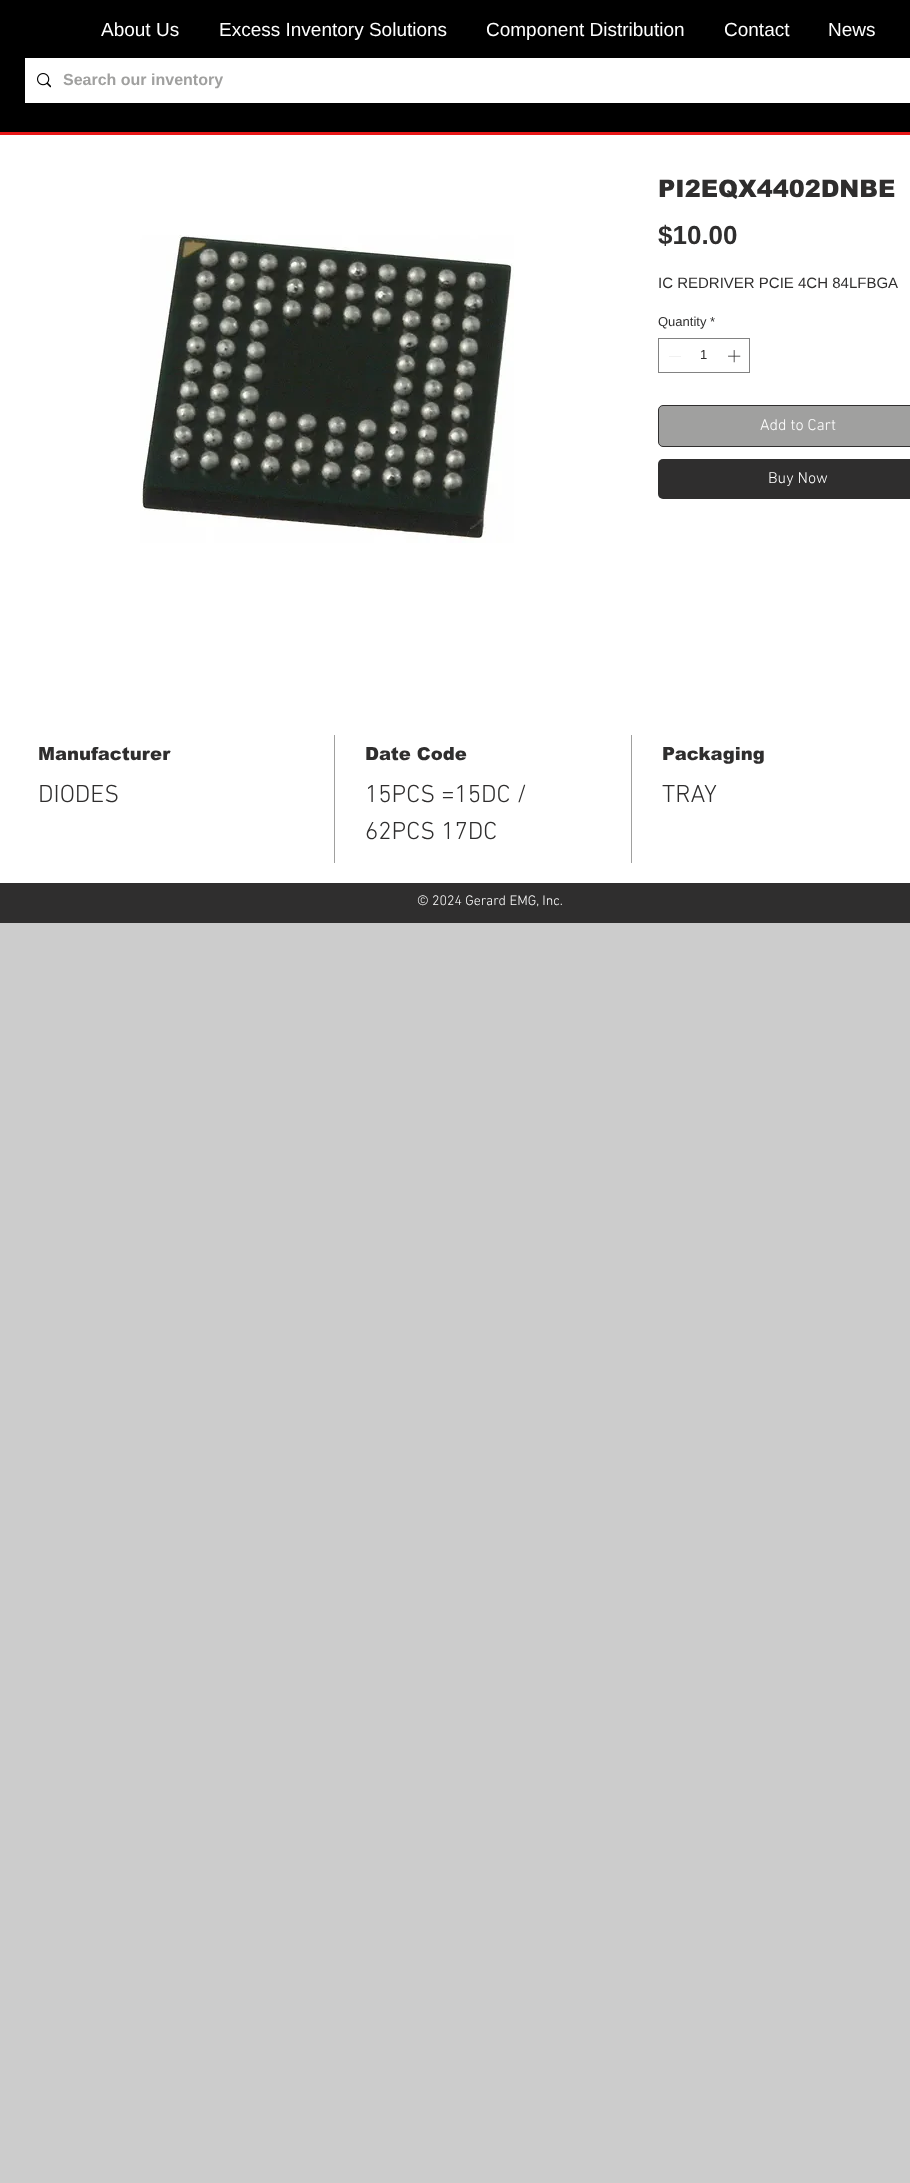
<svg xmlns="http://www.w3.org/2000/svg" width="910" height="2183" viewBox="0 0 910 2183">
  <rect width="100%" height="100%" fill="#cccccc"/>
  <rect x="0" y="0" width="910" height="132" fill="#000000"/>
  <rect x="0" y="132" width="910" height="3" fill="#e81717"/>
  <text x="101" y="36" font-family="Liberation Sans" font-size="19" fill="#ffffff">About Us</text>
  <text x="219" y="36" font-family="Liberation Sans" font-size="19" fill="#ffffff">Excess Inventory Solutions</text>
  <text x="486" y="36" font-family="Liberation Sans" font-size="19" fill="#ffffff">Component Distribution</text>
  <text x="724" y="36" font-family="Liberation Sans" font-size="19" fill="#ffffff">Contact</text>
  <text x="828" y="36" font-family="Liberation Sans" font-size="19" fill="#ffffff">News</text>
  <rect x="25" y="58" width="885" height="45" fill="#ffffff"/>
  <image x="37" y="73" width="14" height="15" href="img1.png"/>
  <text x="63" y="85" font-family="Liberation Sans" font-size="16" font-weight="bold" fill="#a0a09f">Search our inventory</text>
  <rect x="0" y="135" width="910" height="748" fill="#ffffff"/>
  <image x="140" y="235" width="374" height="308" href="img2.png"/>
  <text x="658" y="197" font-family="arial" font-size="24" font-weight="900" fill="#2f2e2e">PI2EQX4402DNBE</text>
  <text x="658" y="244" font-family="Liberation Sans" font-size="26" font-weight="bold" fill="#2f2e2e">$10.00</text>
  <text x="658" y="288" font-family="Liberation Sans" font-size="15" fill="#2f2e2e">IC REDRIVER PCIE 4CH 84LFBGA</text>
  <text x="658" y="326" font-family="Liberation Sans" font-size="13" fill="#2f2e2e">Quantity</text>
  <text x="710" y="326" font-family="Liberation Sans" font-size="13" fill="#2f2e2e">*</text>
  <rect x="658.5" y="338.5" width="91" height="34" fill="none" stroke="#828282"/>
  <path d="M681 356V356.5H669V356Z" fill="#e3e3e3" fill-rule="evenodd"/>
  <text x="700" y="359" font-family="Liberation Sans" font-size="13" fill="#2f2e2e">1</text>
  <image x="728" y="350" width="13" height="13" href="img3.png"/>
  <rect x="658.5" y="405.5" width="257" height="41" rx="4.5" fill="#a0a09f" stroke="#2f2e2e"/>
  <text x="760" y="430" font-family="'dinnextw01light'" font-size="16" font-weight="300" fill="#ffffff">Add to Cart</text>
  <rect x="658" y="459" width="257" height="40" rx="5" fill="#2f2e2e"/>
  <text x="768" y="483" font-family="'dinnextw01light'" font-size="16" font-weight="300" fill="#ffffff">Buy Now</text>
  <rect x="334" y="735" width="1" height="128" fill="#a0a09f"/>
  <text x="38" y="760" font-family="arial" font-size="18" font-weight="900" fill="#2f2e2e">Manufacturer</text>
  <text x="38" y="802" font-family="'dinnextw01light'" font-size="25" font-weight="300" fill="#2f2e2e">DIODES</text>
  <rect x="631" y="735" width="1" height="128" fill="#a0a09f"/>
  <text x="365" y="760" font-family="arial" font-size="18" font-weight="900" fill="#2f2e2e">Date Code</text>
  <text x="365" y="802" font-family="'dinnextw01light'" font-size="25" font-weight="300" fill="#2f2e2e">15PCS =15DC /</text>
  <text x="365" y="839" font-family="'dinnextw01light'" font-size="25" font-weight="300" fill="#2f2e2e">62PCS 17DC</text>
  <text x="662" y="760" font-family="arial" font-size="18" font-weight="900" fill="#2f2e2e">Packaging</text>
  <text x="662" y="802" font-family="'dinnextw01light'" font-size="25" font-weight="300" fill="#2f2e2e">TRAY</text>
  <rect x="0" y="883" width="910" height="40" fill="#2f2e2e"/>
  <text x="417" y="905" font-family="'dinnextw01light'" font-size="14" font-weight="300" fill="#ffffff">© 2024 Gerard EMG, Inc.</text>
</svg>
